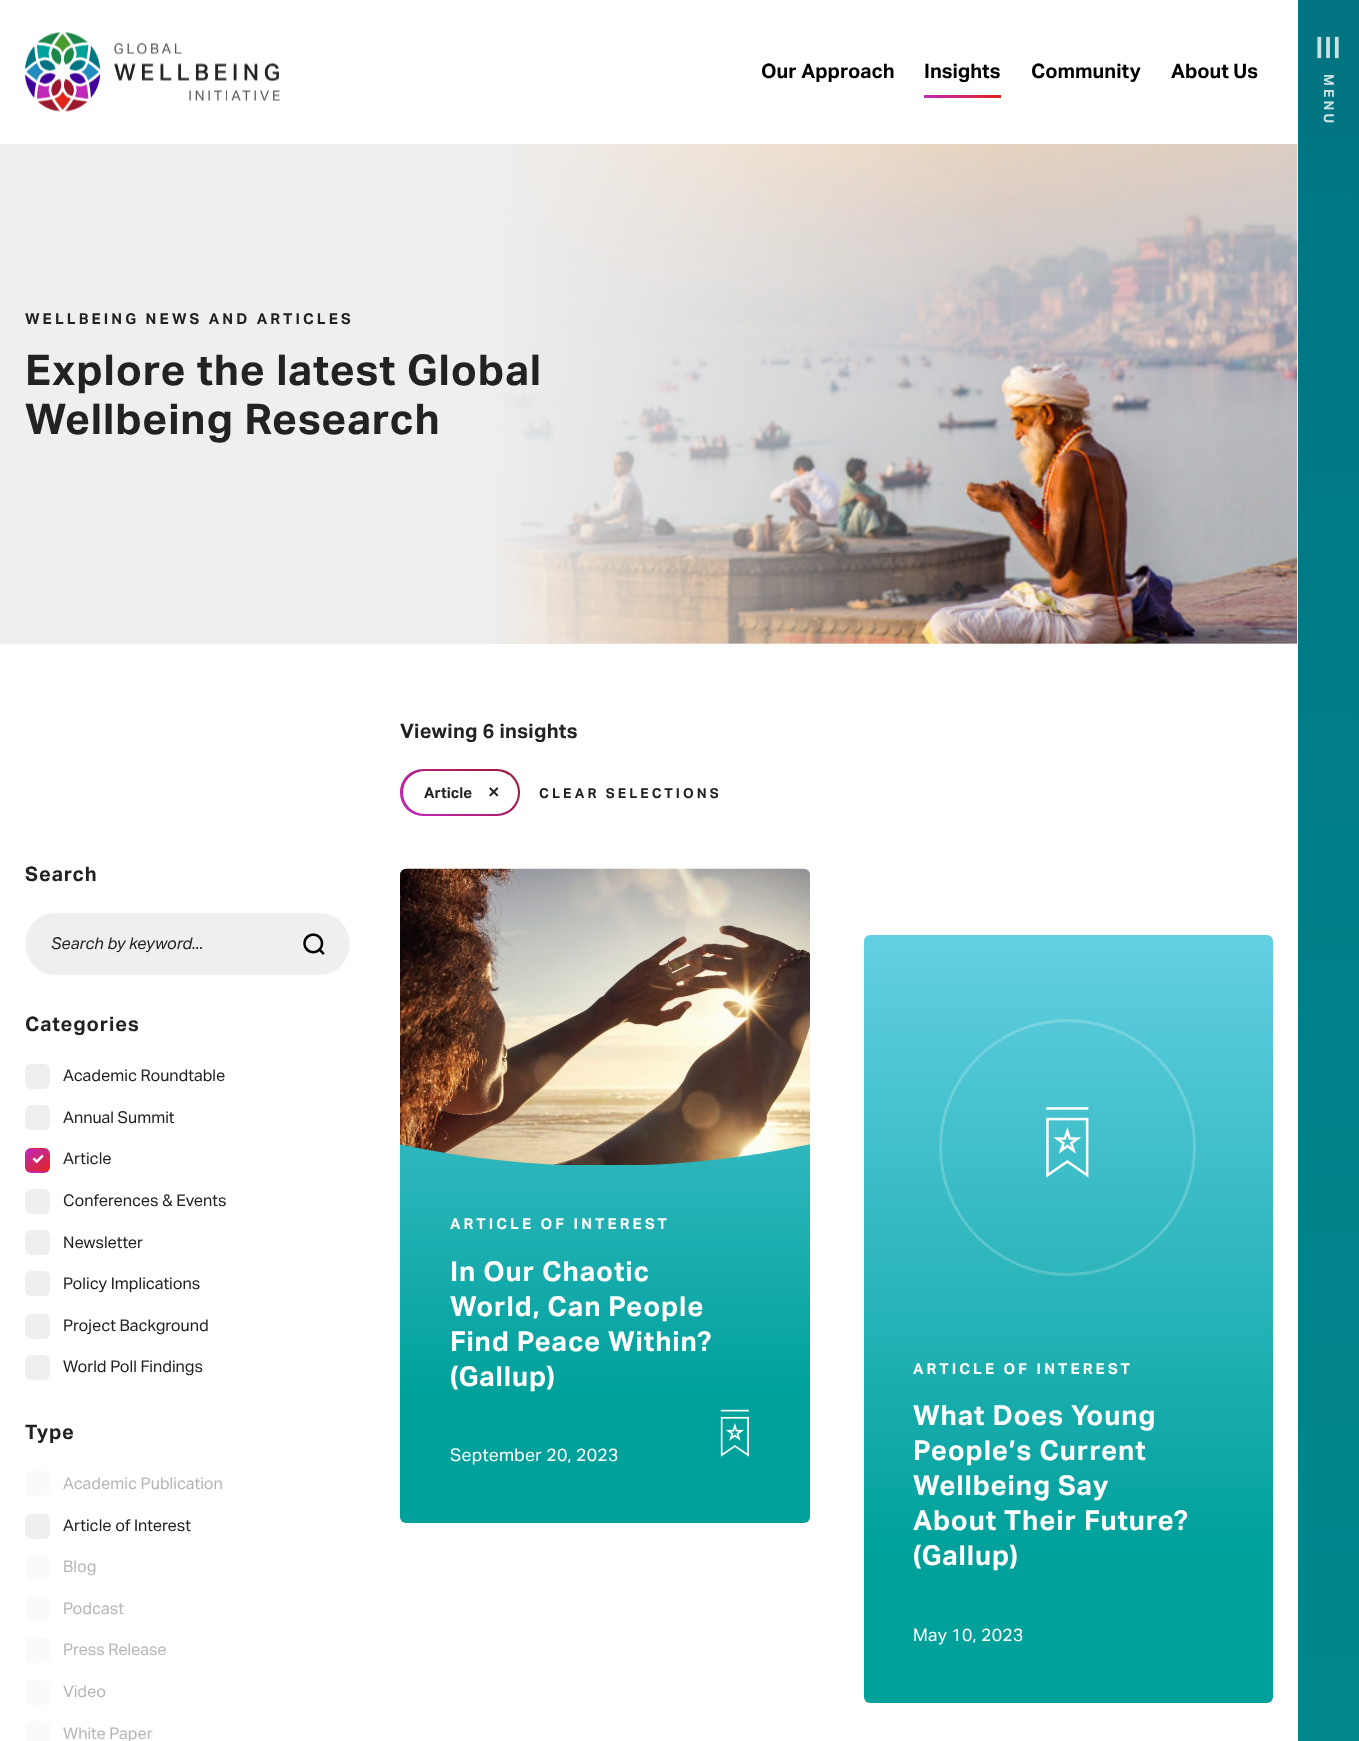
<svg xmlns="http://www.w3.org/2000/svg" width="1359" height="1741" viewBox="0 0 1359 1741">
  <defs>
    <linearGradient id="g1" gradientUnits="userSpaceOnUse" x1="924" y1="96" x2="1001" y2="96"><stop offset="0" stop-color="#c028b9"/><stop offset="1" stop-color="#e1251b"/></linearGradient>
    <linearGradient id="g2" gradientUnits="userSpaceOnUse" x1="1329" y1="0" x2="1329" y2="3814"><stop offset="0" stop-color="#007481"/><stop offset="1" stop-color="#00a19b"/></linearGradient>
    <linearGradient id="g3" gradientUnits="userSpaceOnUse" x1="-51" y1="394" x2="1005" y2="394"><stop offset="0.5" stop-color="#efefef"/><stop offset="1" stop-color="#efefef" stop-opacity="0"/></linearGradient>
    <clipPath id="clip1"><rect x="25" y="1148" width="25" height="25" rx="6"/></clipPath>
    <linearGradient id="g4" gradientUnits="userSpaceOnUse" x1="45" y1="1151" x2="30" y2="1124"><stop offset="0" stop-color="#e1251b"/><stop offset="0.97" stop-color="#c028b9"/></linearGradient>
    <linearGradient id="g5" gradientUnits="userSpaceOnUse" x1="22" y1="1173" x2="7.6" y2="1147"><stop offset="0" stop-color="#e1251b"/><stop offset="0.97" stop-color="#c028b9"/></linearGradient>
    <linearGradient id="g6" gradientUnits="userSpaceOnUse" x1="45" y1="1173" x2="30" y2="1147"><stop offset="0" stop-color="#e1251b"/><stop offset="0.97" stop-color="#c028b9"/></linearGradient>
    <linearGradient id="g7" gradientUnits="userSpaceOnUse" x1="67" y1="1173" x2="53" y2="1147"><stop offset="0" stop-color="#e1251b"/><stop offset="0.97" stop-color="#c028b9"/></linearGradient>
    <linearGradient id="g8" gradientUnits="userSpaceOnUse" x1="45" y1="1196" x2="30" y2="1169"><stop offset="0" stop-color="#e1251b"/><stop offset="0.97" stop-color="#c028b9"/></linearGradient>
    <linearGradient id="g9" gradientUnits="userSpaceOnUse" x1="424" y1="836" x2="496" y2="749"><stop offset="0.06" stop-color="#c028b9"/><stop offset="0.98" stop-color="#9c182f"/></linearGradient>
    <linearGradient id="g10" gradientUnits="userSpaceOnUse" x1="605" y1="869" x2="605" y2="1523"><stop offset="0" stop-color="#63cfe3"/><stop offset="0.8" stop-color="#00a19b"/></linearGradient>
    <linearGradient id="g11" gradientUnits="userSpaceOnUse" x1="1068" y1="935" x2="1068" y2="1703"><stop offset="0" stop-color="#63cfe3"/><stop offset="0.8" stop-color="#00a19b"/></linearGradient>
  </defs>
  <rect width="100%" height="100%" fill="#ffffff"/>
  <image x="25" y="32" width="255" height="80" href="img1.png"/>
  <text x="761" y="78" font-family="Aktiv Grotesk" font-size="20" font-weight="bold" fill="#000000">Our Approach</text>
  <text x="924" y="78" font-family="Aktiv Grotesk" font-size="20" font-weight="bold" fill="#000000">Insights</text>
  <rect x="924" y="95" width="77" height="3" fill="url(#g1)"/>
  <text x="1031" y="78" font-family="Aktiv Grotesk" font-size="20" font-weight="bold" fill="#000000">Community</text>
  <text x="1171" y="78" font-family="Aktiv Grotesk" font-size="20" font-weight="bold" fill="#000000">About Us</text>
  <rect x="1298" y="0" width="61" height="1741" fill="url(#g2)"/>
  <image x="1317" y="36" width="22" height="23" href="img2.png"/>
  <text x="1324" y="74" transform="rotate(90 1324 74)" font-family="Aktiv Grotesk" font-size="13.75" font-weight="bold" letter-spacing="3.1" fill="#cce3e6">MENU</text>
  <rect x="480" y="144" width="818" height="500" fill="#efefef"/>
  <image x="480" y="144" width="817" height="500" href="img3.png"/>
  <rect x="0" y="144" width="994" height="500" fill="url(#g3)"/>
  <text x="25" y="324" font-family="Aktiv Grotesk" font-size="15" font-weight="bold" letter-spacing="3.1" fill="#222222">WELLBEING NEWS AND ARTICLES</text>
  <text x="25" y="385" font-family="Aktiv Grotesk" font-size="42.5" font-weight="bold" letter-spacing="0.9" fill="#222222">Explore the latest Global</text>
  <text x="25" y="434" font-family="Aktiv Grotesk" font-size="42.5" font-weight="bold" letter-spacing="0.9" fill="#222222">Wellbeing Research</text>
  <text x="25" y="881" font-family="Aktiv Grotesk" font-size="20" font-weight="bold" letter-spacing="0.9" fill="#222222">Search</text>
  <rect x="25" y="913" width="325" height="62" rx="31" fill="#efefef"/>
  <text x="51" y="949" font-family="Aktiv Grotesk" font-size="16.25" font-style="italic" letter-spacing="0.1" fill="#222222">Search by keyword...</text>
  <image x="303" y="933" width="22" height="22" href="img4.png"/>
  <text x="25" y="1031" font-family="Aktiv Grotesk" font-size="20" font-weight="bold" letter-spacing="0.9" fill="#222222">Categories</text>
  <rect x="25" y="1064" width="25" height="25" rx="6" fill="#efefef"/>
  <text x="63" y="1081" font-family="Aktiv Grotesk" font-size="16.25" fill="#222222">Academic Roundtable</text>
  <rect x="25" y="1105" width="25" height="25" rx="6" fill="#efefef"/>
  <text x="63" y="1123" font-family="Aktiv Grotesk" font-size="16.25" fill="#222222">Annual Summit</text>
  <g clip-path="url(#clip1)">
    <rect x="26" y="1148" width="23" height="1" fill="url(#g4)"/>
    <rect x="25" y="1149" width="1" height="22" fill="url(#g5)"/>
    <rect x="26" y="1149" width="23" height="22" fill="url(#g6)"/>
    <rect x="49" y="1149" width="1" height="22" fill="url(#g7)"/>
    <rect x="26" y="1171" width="23" height="2" fill="url(#g8)"/>
  </g>
  <image x="32" y="1154" width="12" height="10" href="img5.png"/>
  <text x="63" y="1164" font-family="Aktiv Grotesk" font-size="16.25" fill="#222222">Article</text>
  <rect x="25" y="1189" width="25" height="25" rx="6" fill="#efefef"/>
  <text x="63" y="1206" font-family="Aktiv Grotesk" font-size="16.25" fill="#222222">Conferences &amp; Events</text>
  <rect x="25" y="1230" width="25" height="25" rx="6" fill="#efefef"/>
  <text x="63" y="1248" font-family="Aktiv Grotesk" font-size="16.25" fill="#222222">Newsletter</text>
  <rect x="25" y="1271" width="25" height="25" rx="6" fill="#efefef"/>
  <text x="63" y="1289" font-family="Aktiv Grotesk" font-size="16.25" fill="#222222">Policy Implications</text>
  <rect x="25" y="1314" width="25" height="25" rx="6" fill="#efefef"/>
  <text x="63" y="1331" font-family="Aktiv Grotesk" font-size="16.25" fill="#222222">Project Background</text>
  <rect x="25" y="1355" width="25" height="25" rx="6" fill="#efefef"/>
  <text x="63" y="1372" font-family="Aktiv Grotesk" font-size="16.25" fill="#222222">World Poll Findings</text>
  <text x="25" y="1439" font-family="Aktiv Grotesk" font-size="20" font-weight="bold" letter-spacing="0.9" fill="#222222">Type</text>
  <rect x="25" y="1471" width="25" height="25" rx="6" fill="#fafafa"/>
  <text x="63" y="1489" font-family="Aktiv Grotesk" font-size="16.25" fill="#b6b6b6">Academic Publication</text>
  <rect x="25" y="1514" width="25" height="25" rx="6" fill="#efefef"/>
  <text x="63" y="1531" font-family="Aktiv Grotesk" font-size="16.25" fill="#222222">Article of Interest</text>
  <rect x="25" y="1555" width="25" height="25" rx="6" fill="#fafafa"/>
  <text x="63" y="1572" font-family="Aktiv Grotesk" font-size="16.25" fill="#b6b6b6">Blog</text>
  <rect x="25" y="1596" width="25" height="25" rx="6" fill="#fafafa"/>
  <text x="63" y="1614" font-family="Aktiv Grotesk" font-size="16.25" fill="#b6b6b6">Podcast</text>
  <rect x="25" y="1638" width="25" height="25" rx="6" fill="#fafafa"/>
  <text x="63" y="1655" font-family="Aktiv Grotesk" font-size="16.25" fill="#b6b6b6">Press Release</text>
  <rect x="25" y="1680" width="25" height="25" rx="6" fill="#fafafa"/>
  <text x="63" y="1697" font-family="Aktiv Grotesk" font-size="16.25" fill="#b6b6b6">Video</text>
  <rect x="25" y="1721" width="25" height="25" rx="6" fill="#fafafa"/>
  <text x="63" y="1739" font-family="Aktiv Grotesk" font-size="16.25" fill="#b6b6b6">White Paper</text>
  <text x="400" y="738" font-family="Aktiv Grotesk" font-size="20" font-weight="bold" letter-spacing="0.3" fill="#222222">Viewing 6 insights</text>
  <rect x="400" y="769" width="120" height="47" rx="23" fill="url(#g9)"/>
  <rect x="403" y="771" width="115" height="43" rx="21.5" fill="#ffffff"/>
  <text x="424" y="798" font-family="Aktiv Grotesk" font-size="15" font-weight="bold" fill="#222222">Article</text>
  <image x="489" y="787" width="10" height="10" href="img6.png"/>
  <text x="539" y="798" font-family="Aktiv Grotesk" font-size="13.75" font-weight="bold" letter-spacing="3.1" fill="#222222">CLEAR SELECTIONS</text>
  <rect x="400" y="869" width="410" height="654" rx="6" fill="url(#g10)"/>
  <image x="400" y="868" width="410" height="297" href="img7.png"/>
  <text x="450" y="1229" font-family="Aktiv Grotesk" font-size="15" font-weight="bold" letter-spacing="3.1" fill="#ffffff">ARTICLE OF INTEREST</text>
  <text x="450" y="1281" font-family="Aktiv Grotesk" font-size="27.5" font-weight="bold" letter-spacing="0.9" fill="#ffffff">In Our Chaotic</text>
  <text x="450" y="1316" font-family="Aktiv Grotesk" font-size="27.5" font-weight="bold" letter-spacing="0.9" fill="#ffffff">World, Can People</text>
  <text x="450" y="1351" font-family="Aktiv Grotesk" font-size="27.5" font-weight="bold" letter-spacing="0.9" fill="#ffffff">Find Peace Within?</text>
  <text x="450" y="1386" font-family="Aktiv Grotesk" font-size="27.5" font-weight="bold" letter-spacing="0.9" fill="#ffffff">(Gallup)</text>
  <text x="450" y="1461" font-family="Aktiv Grotesk" font-size="17.5" letter-spacing="0.3" fill="#ffffff">September 20, 2023</text>
  <image x="720" y="1409" width="29" height="48" href="img8.png"/>
  <rect x="864" y="935" width="409" height="768" rx="6" fill="url(#g11)"/>
  <image x="1046" y="1107" width="43" height="71" href="img9.png"/>
  <circle cx="1067.5" cy="1147.5" r="127" fill="none" stroke="#ffffff" stroke-opacity="0.2" stroke-width="3"/>
  <text x="913" y="1374" font-family="Aktiv Grotesk" font-size="15" font-weight="bold" letter-spacing="3.1" fill="#ffffff">ARTICLE OF INTEREST</text>
  <text x="913" y="1425" font-family="Aktiv Grotesk" font-size="27.5" font-weight="bold" letter-spacing="0.9" fill="#ffffff">What Does Young</text>
  <text x="913" y="1460" font-family="Aktiv Grotesk" font-size="27.5" font-weight="bold" letter-spacing="0.9" fill="#ffffff">People’s Current</text>
  <text x="913" y="1495" font-family="Aktiv Grotesk" font-size="27.5" font-weight="bold" letter-spacing="0.9" fill="#ffffff">Wellbeing Say</text>
  <text x="913" y="1530" font-family="Aktiv Grotesk" font-size="27.5" font-weight="bold" letter-spacing="0.9" fill="#ffffff">About Their Future?</text>
  <text x="913" y="1565" font-family="Aktiv Grotesk" font-size="27.5" font-weight="bold" letter-spacing="0.9" fill="#ffffff">(Gallup)</text>
  <text x="913" y="1641" font-family="Aktiv Grotesk" font-size="17.5" letter-spacing="0.3" fill="#ffffff">May 10, 2023</text>
</svg>
